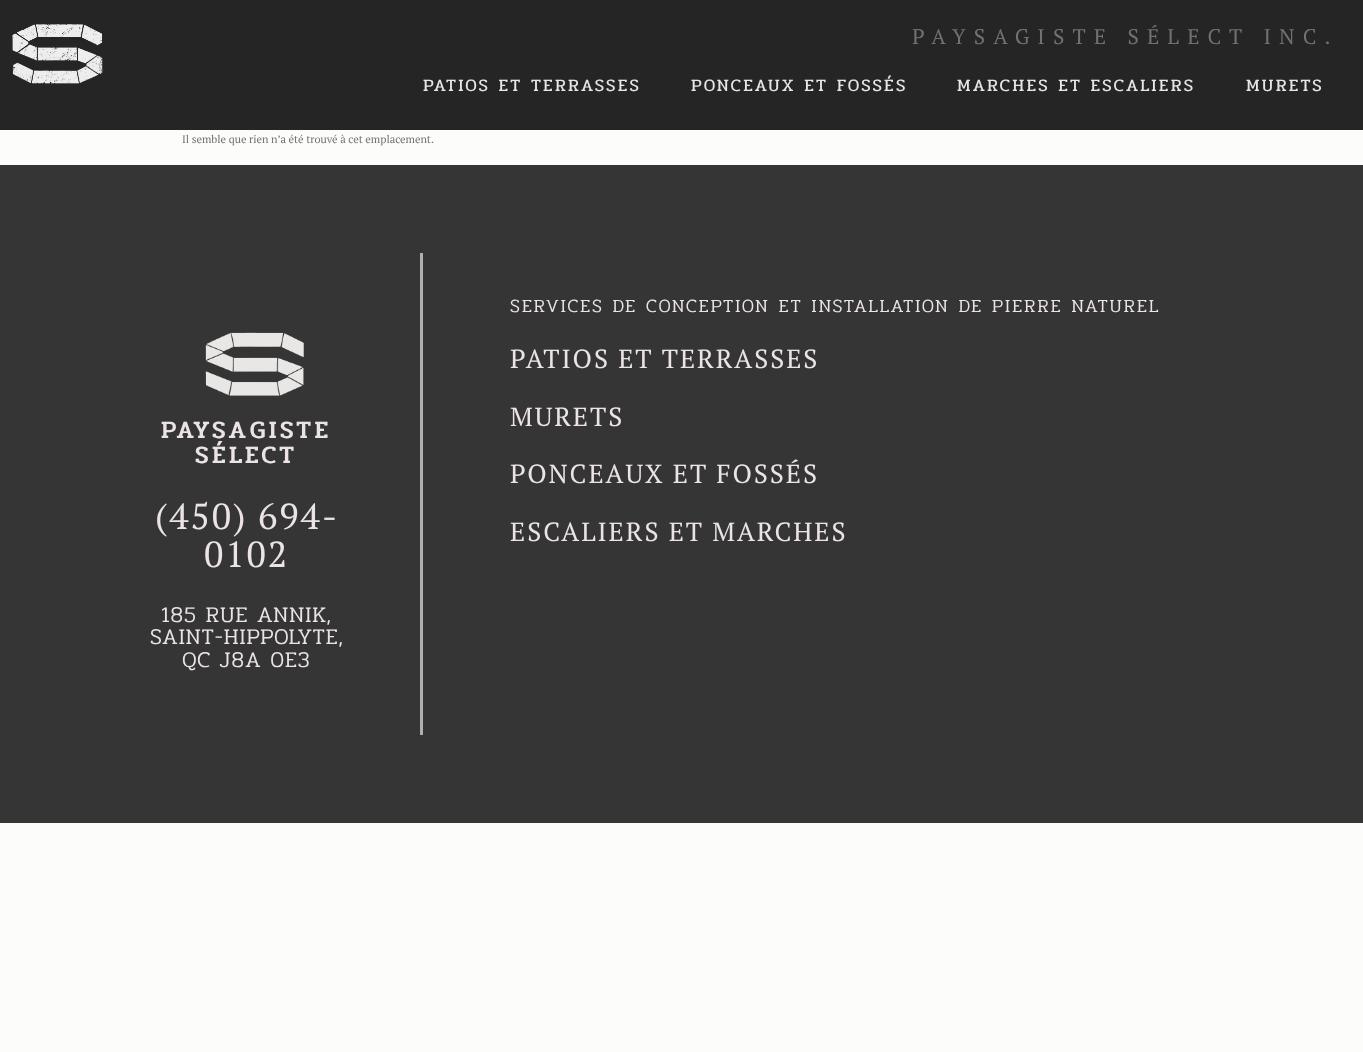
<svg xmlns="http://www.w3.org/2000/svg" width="1363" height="1052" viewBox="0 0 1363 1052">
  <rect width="100%" height="100%" fill="#fcfcfb"/>
  <rect x="0" y="0" width="1363" height="130" fill="#252525"/>
  <image x="12" y="24" width="91" height="60" href="img1.png"/>
  <text x="912" y="44" font-family="PT Serif" font-size="21.25" letter-spacing="8.1" fill="#717171">PAYSAGISTE SÉLECT INC.</text>
  <text x="423" y="91" font-family="Pridi" font-size="17.5" letter-spacing="2.25" fill="#e6e6e6">PATIOS ET TERRASSES</text>
  <text x="691" y="91" font-family="Pridi" font-size="17.5" letter-spacing="2.25" fill="#e6e6e6">PONCEAUX ET FOSSÉS</text>
  <text x="957" y="91" font-family="Pridi" font-size="17.5" letter-spacing="2.25" fill="#e6e6e6">MARCHES ET ESCALIERS</text>
  <text x="1246" y="91" font-family="Pridi" font-size="17.5" letter-spacing="2.25" fill="#e6e6e6">MURETS</text>
  <text x="182" y="143" font-family="PT Serif" font-size="10.9" fill="#717171">Il semble que rien n’a été trouvé à cet emplacement.</text>
  <rect x="0" y="165" width="1363" height="658" fill="#353535"/>
  <image x="205" y="332" width="99" height="64" href="img2.png"/>
  <text x="161" y="438" font-family="Pridi" font-size="25" font-weight="500" letter-spacing="3.4" fill="#ece4e4">PAYSAGISTE</text>
  <text x="195" y="463" font-family="Pridi" font-size="25" font-weight="500" letter-spacing="3.4" fill="#ece4e4">SÉLECT</text>
  <text x="155" y="529" font-family="PT Serif" font-size="36.25" letter-spacing="1.9" fill="#ece4e4">(450) 694-</text>
  <text x="204" y="567" font-family="PT Serif" font-size="36.25" letter-spacing="1.9" fill="#ece4e4">0102</text>
  <text x="161" y="622" font-family="Pridi" font-size="22.5" font-weight="300" letter-spacing="0.5" fill="#ece4e4">185 RUE ANNIK,</text>
  <text x="150" y="644" font-family="Pridi" font-size="22.5" font-weight="300" letter-spacing="0.5" fill="#ece4e4">SAINT-HIPPOLYTE,</text>
  <text x="182" y="667" font-family="Pridi" font-size="22.5" font-weight="300" letter-spacing="0.5" fill="#ece4e4">QC J8A 0E3</text>
  <rect x="420" y="253" width="3" height="482" fill="#afafaf"/>
  <text x="510" y="312" font-family="Pridi" font-size="18.75" font-weight="300" letter-spacing="1.75" fill="#ece4e4">SERVICES DE CONCEPTION ET INSTALLATION DE PIERRE NATUREL</text>
  <text x="510" y="368" font-family="PT Serif" font-size="26.25" letter-spacing="1.9" fill="#ece4e4">PATIOS ET TERRASSES</text>
  <text x="510" y="426" font-family="PT Serif" font-size="26.25" letter-spacing="1.9" fill="#ece4e4">MURETS</text>
  <text x="510" y="483" font-family="PT Serif" font-size="26.25" letter-spacing="1.9" fill="#ece4e4">PONCEAUX ET FOSSÉS</text>
  <text x="510" y="541" font-family="PT Serif" font-size="26.25" letter-spacing="1.9" fill="#ece4e4">ESCALIERS ET MARCHES</text>
</svg>
